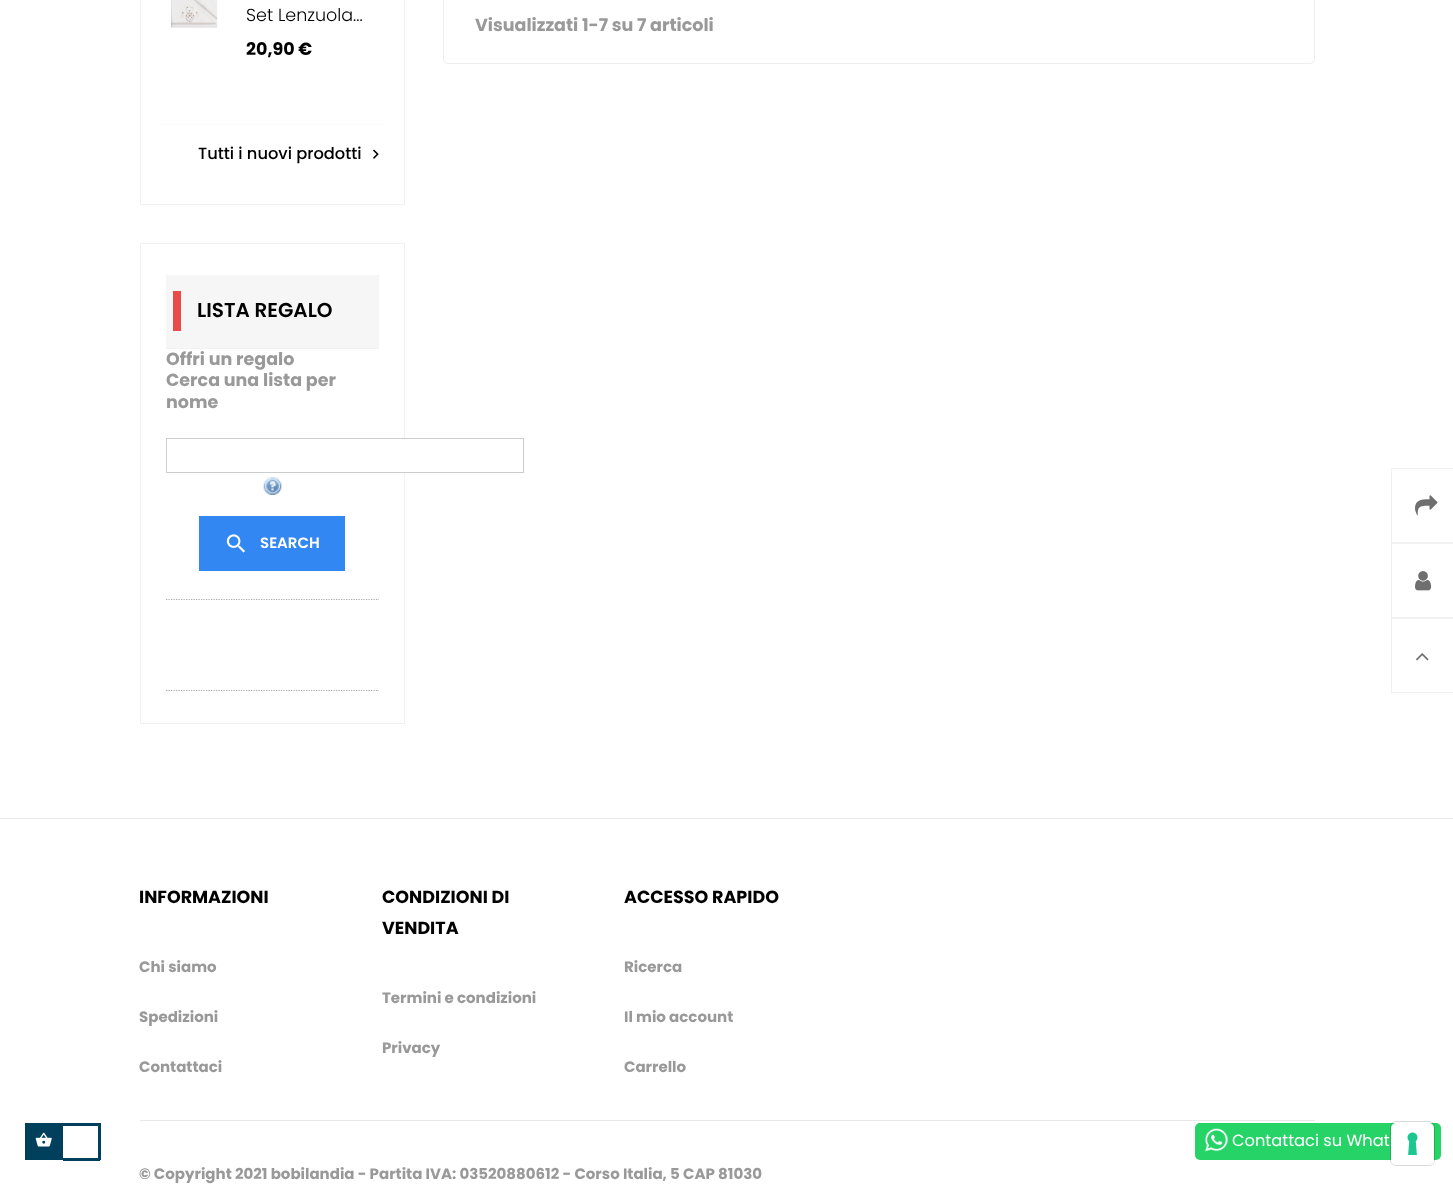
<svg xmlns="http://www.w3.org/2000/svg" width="1453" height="1184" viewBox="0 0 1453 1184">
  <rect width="100%" height="100%" fill="#ffffff"/>
  <rect x="25" y="1123" width="38" height="37" fill="#01405d"/>
  <image x="35" y="1132" width="17" height="15" href="img1.png"/>
  <rect x="63" y="1123" width="37" height="3" fill="#01405d"/>
  <rect x="98" y="1123" width="3" height="37" fill="#01405d"/>
  <rect x="63" y="1158" width="37" height="3" fill="#01405d"/>
  <rect x="140.5" y="-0.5" width="264" height="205" fill="none" stroke="#f1f1f1"/>
  <rect x="160" y="124" width="225" height="1" fill="#fbfbfb"/>
  <image x="171" y="0" width="47" height="28" href="img2.png"/>
  <text x="246" y="21" font-family="Poppins" font-size="17.5" font-weight="300" fill="#000000">Set Lenzuola...</text>
  <text x="246" y="55" font-family="Poppins" font-size="17.5" font-weight="bold" fill="#000000">20,90 €</text>
  <text x="198" y="159" font-family="Poppins" font-size="16.25" font-weight="500" fill="#000000">Tutti i nuovi prodotti</text>
  <image x="373" y="149" width="6" height="10" href="img3.png"/>
  <rect x="140.5" y="243.5" width="264" height="480" fill="none" stroke="#f1f1f1"/>
  <rect x="166" y="275" width="213" height="73" fill="#f6f6f6"/>
  <rect x="166" y="348" width="213" height="1" fill="#f1f1f1"/>
  <rect x="173" y="291" width="8" height="40" fill="#e94a4a"/>
  <text x="197" y="317" font-family="Poppins" font-size="20" font-weight="600" fill="#000000">LISTA REGALO</text>
  <path d="M166 599.5H379" fill="none" stroke="#aaaaaa" stroke-width="1.2" stroke-dasharray="1.25 1.25"/>
  <text x="166" y="365" font-family="Poppins" font-size="17.5" font-weight="bold" fill="#999999">Offri un regalo</text>
  <text x="166" y="386" font-family="Poppins" font-size="17.5" font-weight="bold" fill="#999999">Cerca una lista per</text>
  <text x="166" y="408" font-family="Poppins" font-size="17.5" font-weight="bold" fill="#999999">nome</text>
  <rect x="404" y="439" width="1" height="33" fill="#ffffff"/>
  <rect x="166.5" y="438.5" width="357" height="34" fill="none" stroke="#cccccc"/>
  <image x="263" y="477" width="19" height="18" href="img4.png"/>
  <rect x="199" y="516" width="146" height="55" fill="#3387f2"/>
  <image x="226" y="534" width="19" height="19" href="img5.png"/>
  <text x="260" y="548" font-family="Poppins" font-size="15" font-weight="600" fill="#ffffff">SEARCH</text>
  <path d="M166 690.5H379" fill="none" stroke="#aaaaaa" stroke-width="1.2" stroke-dasharray="1.25 1.25"/>
  <rect x="443.5" y="-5.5" width="871" height="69" rx="4.5" fill="none" stroke="#eeeeee"/>
  <text x="475" y="31" font-family="Poppins" font-size="17.5" font-weight="bold" fill="#999999">Visualizzati 1-7 su 7 articoli</text>
  <rect x="1391.5" y="468.5" width="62" height="74" fill="none" stroke="#f1f1f1"/>
  <image x="1415" y="495" width="23" height="21" href="img6.png"/>
  <rect x="1391.5" y="543.5" width="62" height="74" fill="none" stroke="#f1f1f1"/>
  <image x="1415" y="571" width="17" height="20" href="img7.png"/>
  <rect x="1391.5" y="618.5" width="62" height="74" fill="none" stroke="#f1f1f1"/>
  <image x="1416" y="653" width="13" height="8" href="img8.png"/>
  <rect x="0" y="818" width="1453" height="1" fill="#e8e8e8"/>
  <text x="139" y="903" font-family="Poppins" font-size="17.5" font-weight="bold" fill="#000000">INFORMAZIONI</text>
  <text x="139" y="972" font-family="Poppins" font-size="15" font-weight="bold" fill="#999999">Chi siamo</text>
  <text x="139" y="1022" font-family="Poppins" font-size="15" font-weight="bold" fill="#999999">Spedizioni</text>
  <text x="139" y="1072" font-family="Poppins" font-size="15" font-weight="bold" fill="#999999">Contattaci</text>
  <text x="382" y="903" font-family="Poppins" font-size="17.5" font-weight="bold" fill="#000000">CONDIZIONI DI</text>
  <text x="382" y="934" font-family="Poppins" font-size="17.5" font-weight="bold" fill="#000000">VENDITA</text>
  <text x="382" y="1003" font-family="Poppins" font-size="15" font-weight="bold" fill="#999999">Termini e condizioni</text>
  <text x="382" y="1053" font-family="Poppins" font-size="15" font-weight="bold" fill="#999999">Privacy</text>
  <text x="624" y="903" font-family="Poppins" font-size="17.5" font-weight="bold" fill="#000000">ACCESSO RAPIDO</text>
  <text x="624" y="972" font-family="Poppins" font-size="15" font-weight="bold" fill="#999999">Ricerca</text>
  <text x="624" y="1022" font-family="Poppins" font-size="15" font-weight="bold" fill="#999999">Il mio account</text>
  <text x="624" y="1072" font-family="Poppins" font-size="15" font-weight="bold" fill="#999999">Carrello</text>
  <rect x="140" y="1120" width="1175" height="1" fill="#e8e8e8"/>
  <text x="139" y="1179" font-family="Poppins" font-size="15" font-weight="bold" fill="#999999">© Copyright 2021 bobilandia - Partita IVA: 03520880612 - Corso Italia, 5 CAP 81030</text>
  <rect x="1195" y="1123" width="246" height="37" rx="5" fill="#25d366"/>
  <image x="1205" y="1128" width="23" height="24" href="img9.png"/>
  <text x="1232" y="1146" font-family="Poppins" font-size="16.25" fill="#ffffff">Contattaci su What</text>
  <rect x="1390.5" y="1121.5" width="44" height="44" rx="5.5" fill="none" stroke="#000000" stroke-opacity="0.15"/>
  <rect x="1391" y="1123" width="43" height="42" rx="5" fill="#ffffff"/>
  <image x="1407" y="1132" width="11" height="23" href="img10.png"/>
</svg>
